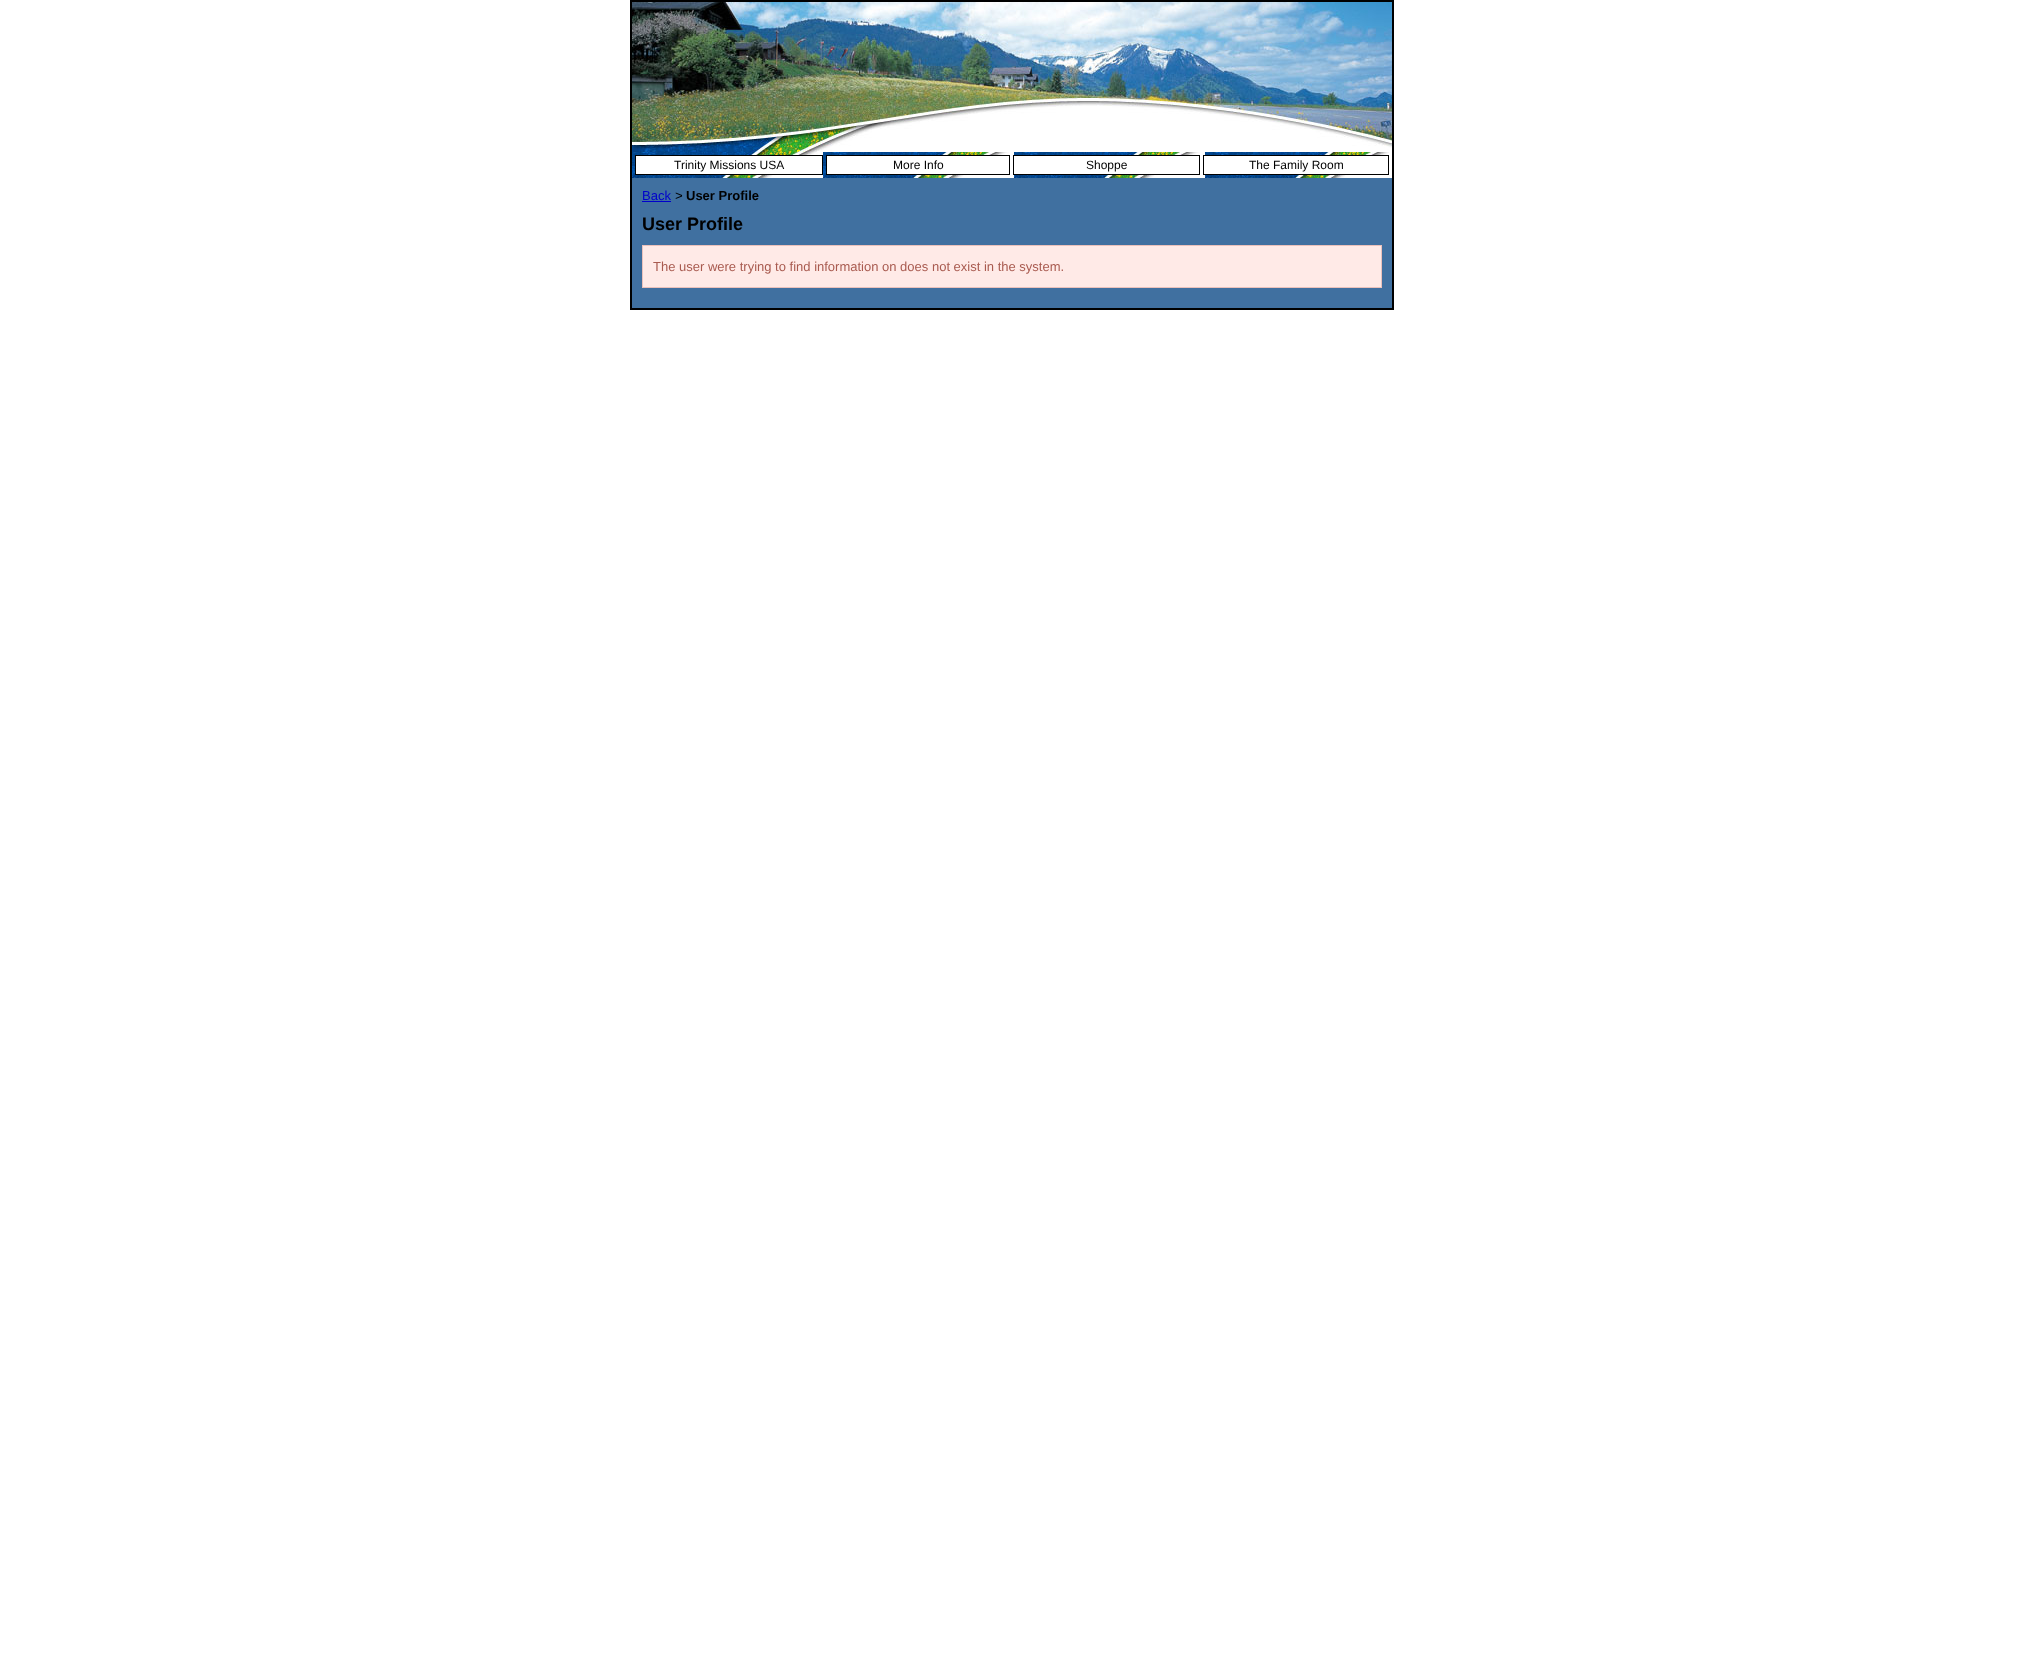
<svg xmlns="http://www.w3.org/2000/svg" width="2024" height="1659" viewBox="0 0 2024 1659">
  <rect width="100%" height="100%" fill="#ffffff"/>
  <rect x="630" y="0" width="764" height="310" fill="#000000"/>
  <image x="632" y="2" width="760" height="150" href="img1.png"/>
  <rect x="1389" y="152" width="3" height="26" fill="#ffffff"/>
  <image x="632" y="152" width="757" height="26" href="img2.png"/>
  <rect x="635" y="155" width="188" height="20" fill="#000000"/>
  <rect x="636" y="156" width="186" height="18" fill="#ffffff"/>
  <text x="674" y="169" font-family="Liberation Sans" font-size="12" fill="#000000">Trinity Missions USA</text>
  <rect x="826" y="155" width="184" height="20" fill="#000000"/>
  <rect x="827" y="156" width="182" height="18" fill="#ffffff"/>
  <text x="893" y="169" font-family="Liberation Sans" font-size="12" fill="#000000">More Info</text>
  <rect x="1013" y="155" width="187" height="20" fill="#000000"/>
  <rect x="1014" y="156" width="185" height="18" fill="#ffffff"/>
  <text x="1086" y="169" font-family="Liberation Sans" font-size="12" fill="#000000">Shoppe</text>
  <rect x="1203" y="155" width="186" height="20" fill="#000000"/>
  <rect x="1204" y="156" width="184" height="18" fill="#ffffff"/>
  <text x="1249" y="169" font-family="Liberation Sans" font-size="12" fill="#000000">The Family Room</text>
  <rect x="632" y="178" width="760" height="130" fill="#4070a0"/>
  <text x="642" y="200" font-family="Liberation Sans" font-size="13" fill="#0000cc">Back</text>
  <rect x="642" y="201" width="29" height="1" fill="#0000cc"/>
  <text x="675" y="200" font-family="Liberation Mono" font-size="13" fill="#000000">&gt;</text>
  <text x="686" y="200" font-family="Liberation Sans" font-size="13" font-weight="bold" fill="#000000">User Profile</text>
  <text x="642" y="230" font-family="Liberation Sans" font-size="18" font-weight="bold" fill="#000000">User Profile</text>
  <rect x="642.5" y="245.5" width="739" height="42" fill="#ffeae7" stroke="#ebc1bb"/>
  <text x="653" y="271" font-family="Liberation Sans" font-size="13" fill="#a95b50">The user were trying to find information on does not exist in the system.</text>
</svg>
